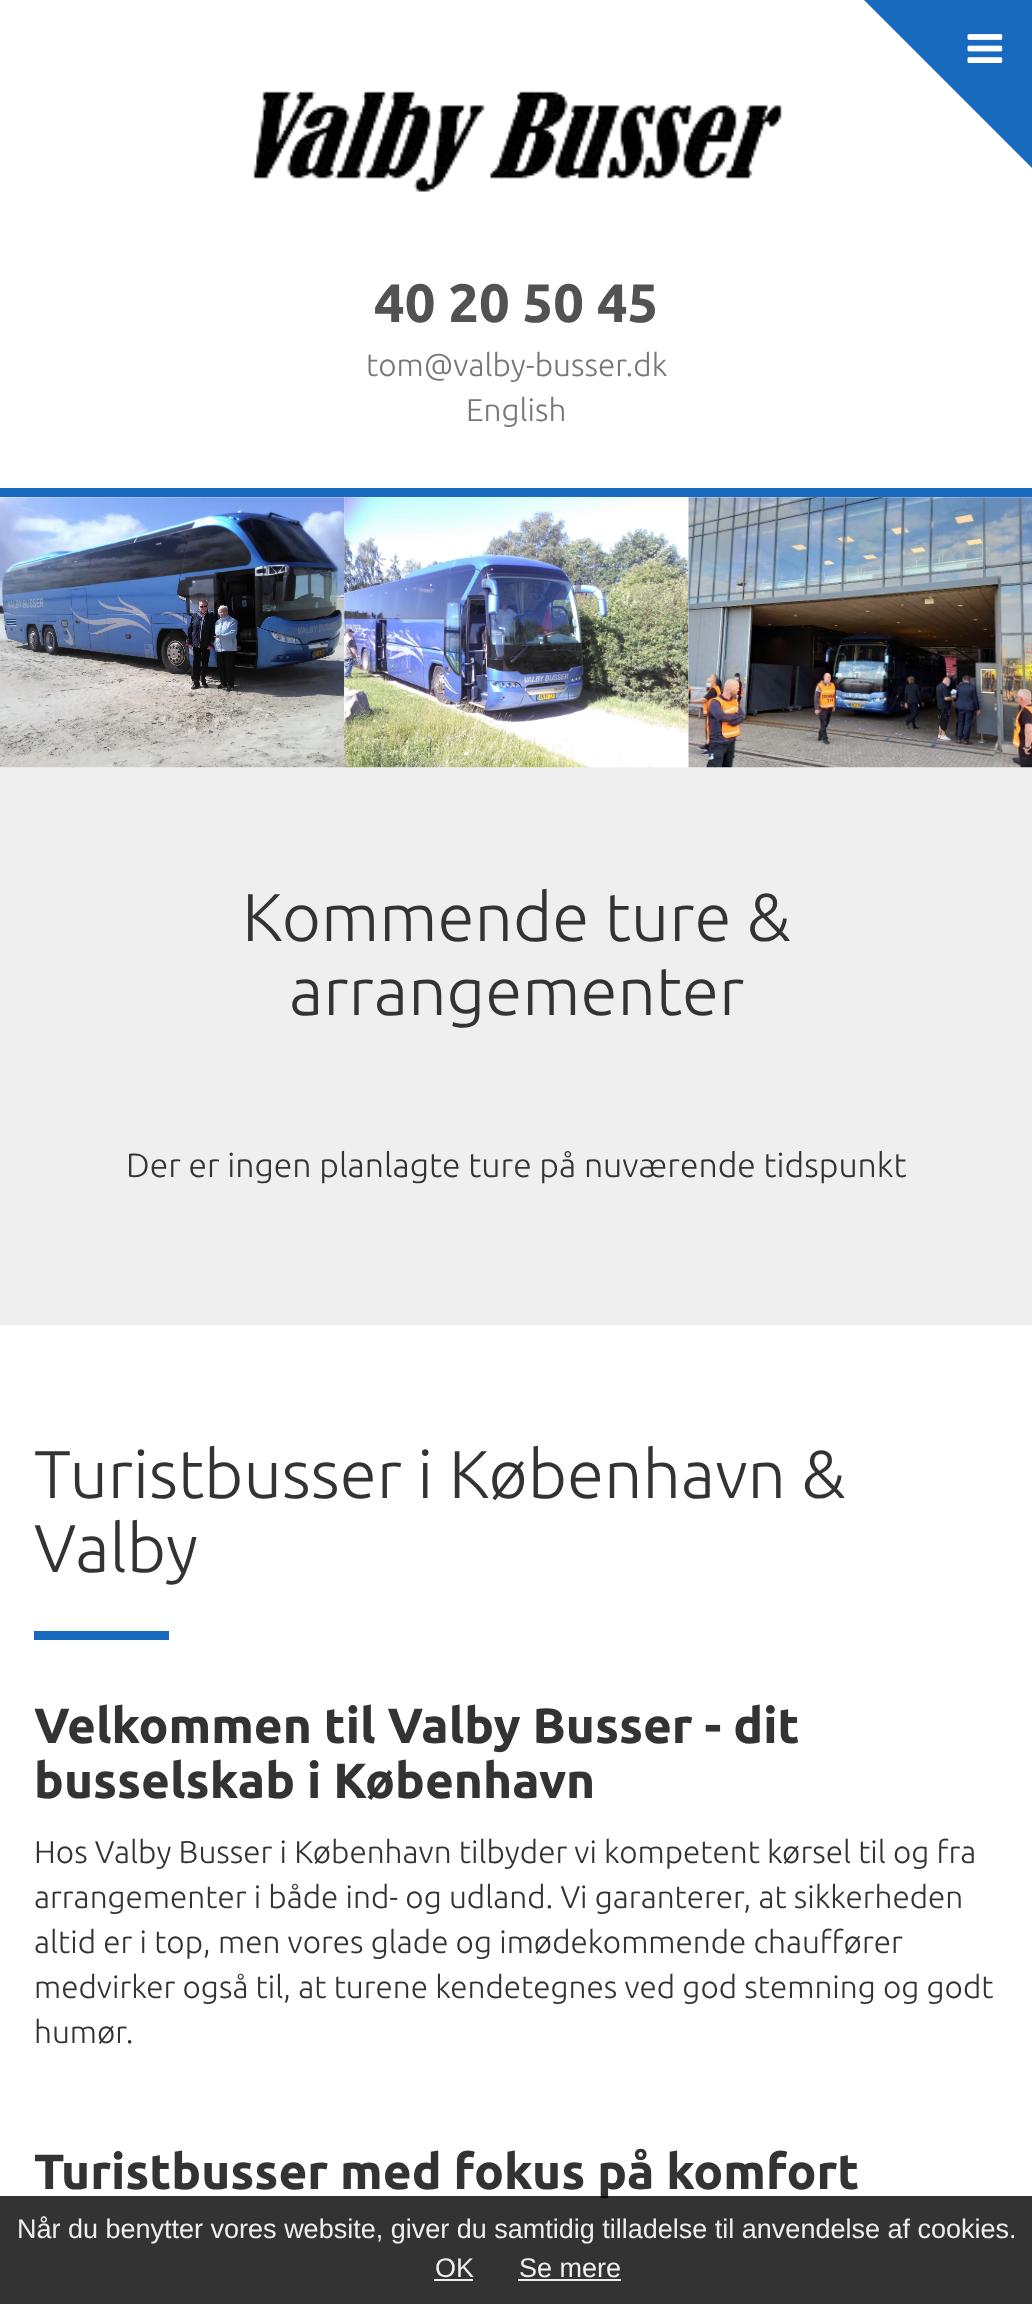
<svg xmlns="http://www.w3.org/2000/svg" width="1032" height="2304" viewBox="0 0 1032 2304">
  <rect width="100%" height="100%" fill="#ffffff"/>
  <path d="M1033 0V169L864 0Z" fill="#186abf"/>
  <image x="967" y="34" width="36" height="29" href="img1.png"/>
  <rect x="0" y="488" width="1032" height="9" fill="#186abf"/>
  <image x="253" y="91" width="530" height="101" href="img2.png"/>
  <text x="374" y="322" font-family="Ubuntu" font-size="54" font-weight="bold" fill="#525252">40 20 50 45</text>
  <text x="366" y="376" font-family="Ubuntu" font-size="31.5" font-weight="300" fill="#777777">tom@valby-busser.dk</text>
  <text x="466" y="421" font-family="Ubuntu" font-size="31.5" font-weight="300" fill="#777777">English</text>
  <rect x="0" y="767" width="1032" height="558" fill="#efefef"/>
  <image x="0" y="497" width="345" height="271" href="img3.png"/>
  <image x="344" y="497" width="345" height="271" href="img4.png"/>
  <image x="688" y="497" width="344" height="271" href="img5.png"/>
  <text x="242" y="941" font-family="Ubuntu" font-size="67.5" font-weight="300" fill="#333333">Kommende ture &amp;</text>
  <text x="289" y="1015" font-family="Ubuntu" font-size="67.5" font-weight="300" fill="#333333">arrangementer</text>
  <text x="126" y="1177" font-family="Ubuntu" font-size="33.75" font-weight="300" fill="#333333">Der er ingen planlagte ture på nuværende tidspunkt</text>
  <text x="34" y="1498" font-family="Ubuntu" font-size="67.5" font-weight="300" fill="#333333">Turistbusser i København &amp;</text>
  <text x="34" y="1572" font-family="Ubuntu" font-size="67.5" font-weight="300" fill="#333333">Valby</text>
  <rect x="34" y="1631" width="135" height="9" fill="#186abf"/>
  <text x="34" y="1743" font-family="Ubuntu" font-size="49.5" font-weight="bold" fill="#333333">Velkommen til Valby Busser - dit</text>
  <text x="34" y="1798" font-family="Ubuntu" font-size="49.5" font-weight="bold" fill="#333333">busselskab i København</text>
  <text x="34" y="1863" font-family="Ubuntu" font-size="31.5" font-weight="300" fill="#333333">Hos Valby Busser i København tilbyder vi kompetent kørsel til og fra</text>
  <text x="34" y="1908" font-family="Ubuntu" font-size="31.5" font-weight="300" fill="#333333">arrangementer i både ind- og udland. Vi garanterer, at sikkerheden</text>
  <text x="34" y="1953" font-family="Ubuntu" font-size="31.5" font-weight="300" fill="#333333">altid er i top, men vores glade og imødekommende chauffører</text>
  <text x="34" y="1998" font-family="Ubuntu" font-size="31.5" font-weight="300" fill="#333333">medvirker også til, at turene kendetegnes ved god stemning og godt</text>
  <text x="34" y="2043" font-family="Ubuntu" font-size="31.5" font-weight="300" fill="#333333">humør.</text>
  <text x="34" y="2189" font-family="Ubuntu" font-size="49.5" font-weight="bold" fill="#333333">Turistbusser med fokus på komfort</text>
  <rect x="0" y="2196" width="1032" height="108" fill="#000000" fill-opacity="0.8"/>
  <text x="17" y="2238" font-family="Liberation Sans" font-size="27" fill="#efefef">Når du benytter vores website, giver du samtidig tilladelse til anvendelse af cookies.</text>
  <text x="435" y="2277" font-family="Liberation Sans" font-size="27" fill="#efefef">OK</text>
  <rect x="434" y="2279" width="39" height="2" fill="#efefef"/>
  <text x="519" y="2277" font-family="Liberation Sans" font-size="27" fill="#efefef">Se mere</text>
  <rect x="518" y="2279" width="103" height="2" fill="#efefef"/>
</svg>
